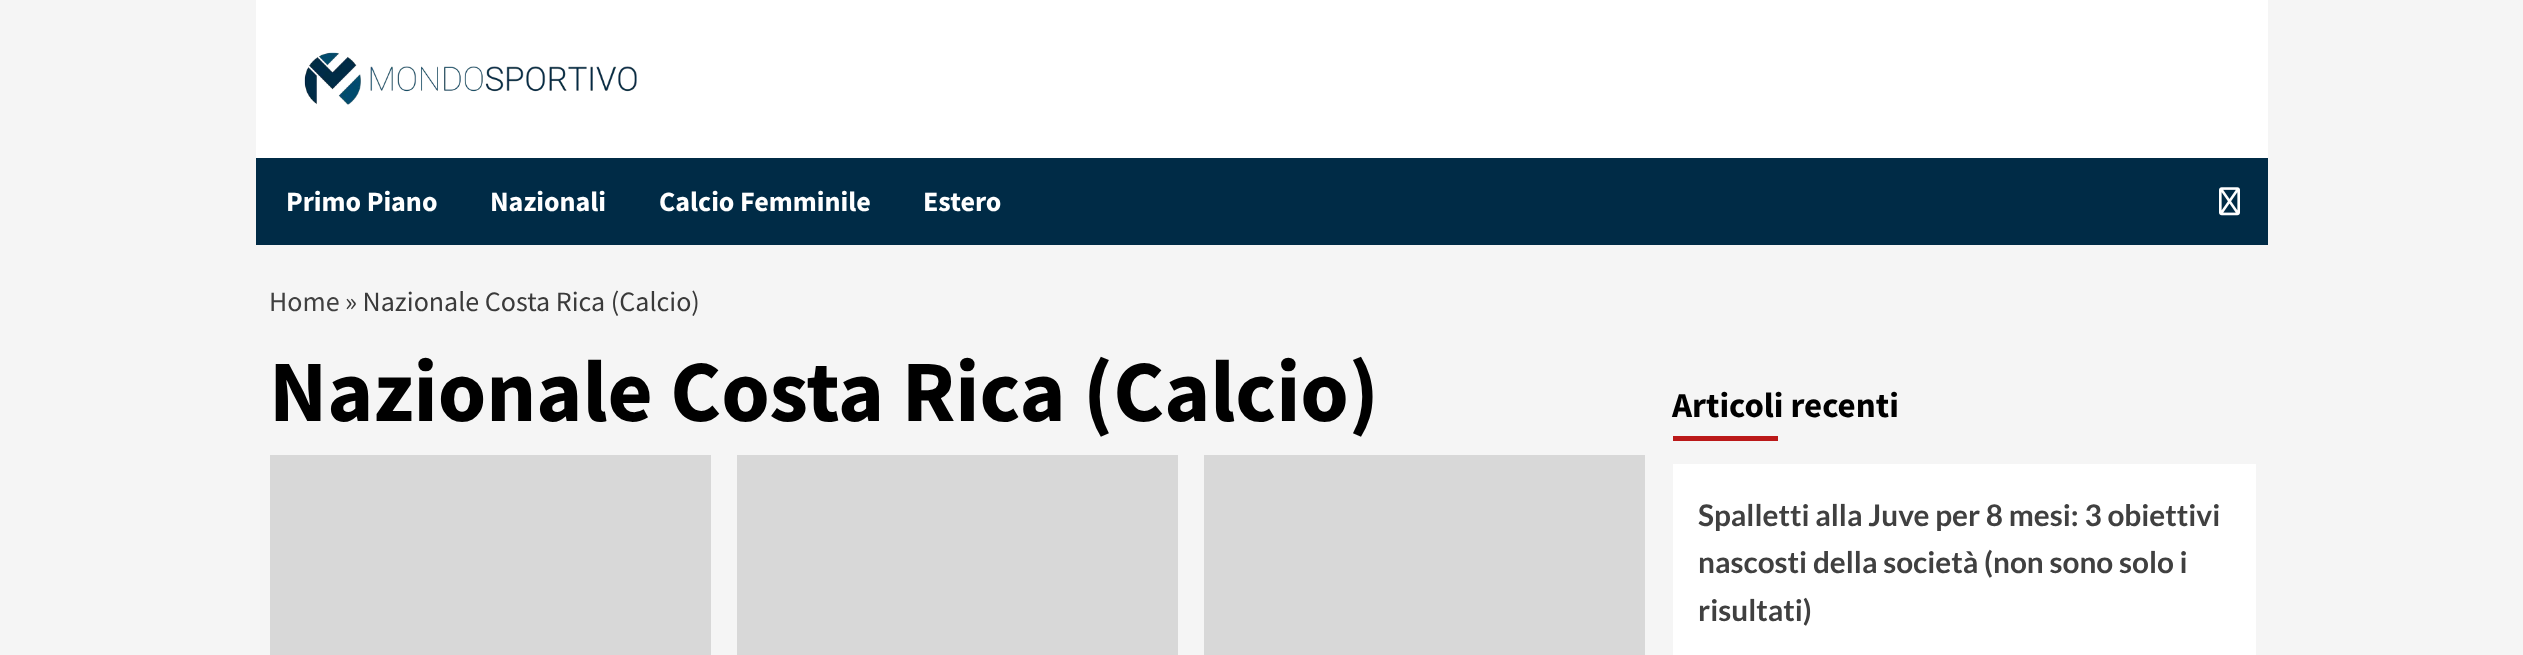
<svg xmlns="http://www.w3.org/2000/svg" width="2523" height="655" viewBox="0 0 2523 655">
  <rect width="100%" height="100%" fill="#f5f5f5"/>
  <rect x="256" y="0" width="2012" height="158" fill="#ffffff"/>
  <image x="304" y="52" width="333" height="53" href="img1.png"/>
  <rect x="256" y="158" width="2012" height="87" fill="#002b46"/>
  <text x="286" y="211" font-family="Source Sans Pro" font-size="28" font-weight="bold" fill="#ffffff">Primo Piano</text>
  <text x="490" y="211" font-family="Source Sans Pro" font-size="28" font-weight="bold" fill="#ffffff">Nazionali</text>
  <text x="659" y="211" font-family="Source Sans Pro" font-size="28" font-weight="bold" fill="#ffffff">Calcio Femminile</text>
  <text x="923" y="211" font-family="Source Sans Pro" font-size="28" font-weight="bold" fill="#ffffff">Estero</text>
  <image x="2219" y="187" width="21" height="29" href="img2.png"/>
  <text x="269" y="311" font-family="Source Sans Pro" font-size="28" fill="#404040">Home</text>
  <text x="345" y="311" font-family="Source Sans Pro" font-size="28" fill="#3a3a3a">» Nazionale Costa Rica (Calcio)</text>
  <text x="269" y="421" font-family="Source Sans Pro" font-size="87.5" font-weight="bold" fill="#000000">Nazionale Costa Rica (Calcio)</text>
  <rect x="270" y="455" width="441" height="200" fill="#d8d8d8"/>
  <rect x="737" y="455" width="441" height="200" fill="#d8d8d8"/>
  <rect x="1204" y="455" width="441" height="200" fill="#d8d8d8"/>
  <text x="1672" y="417" font-family="Source Sans Pro" font-size="35" font-weight="bold" fill="#000000">Articoli recenti</text>
  <rect x="1673" y="436" width="105" height="5" fill="#bb1919"/>
  <rect x="1673" y="464" width="583" height="191" fill="#ffffff"/>
  <text x="1698" y="526" font-family="Lato" font-size="29.75" font-weight="bold" fill="#404040">Spalletti alla Juve per 8 mesi: 3 obiettivi</text>
  <text x="1698" y="573" font-family="Lato" font-size="29.75" font-weight="bold" fill="#404040">nascosti della società (non sono solo i</text>
  <text x="1698" y="621" font-family="Lato" font-size="29.75" font-weight="bold" fill="#404040">risultati)</text>
</svg>
